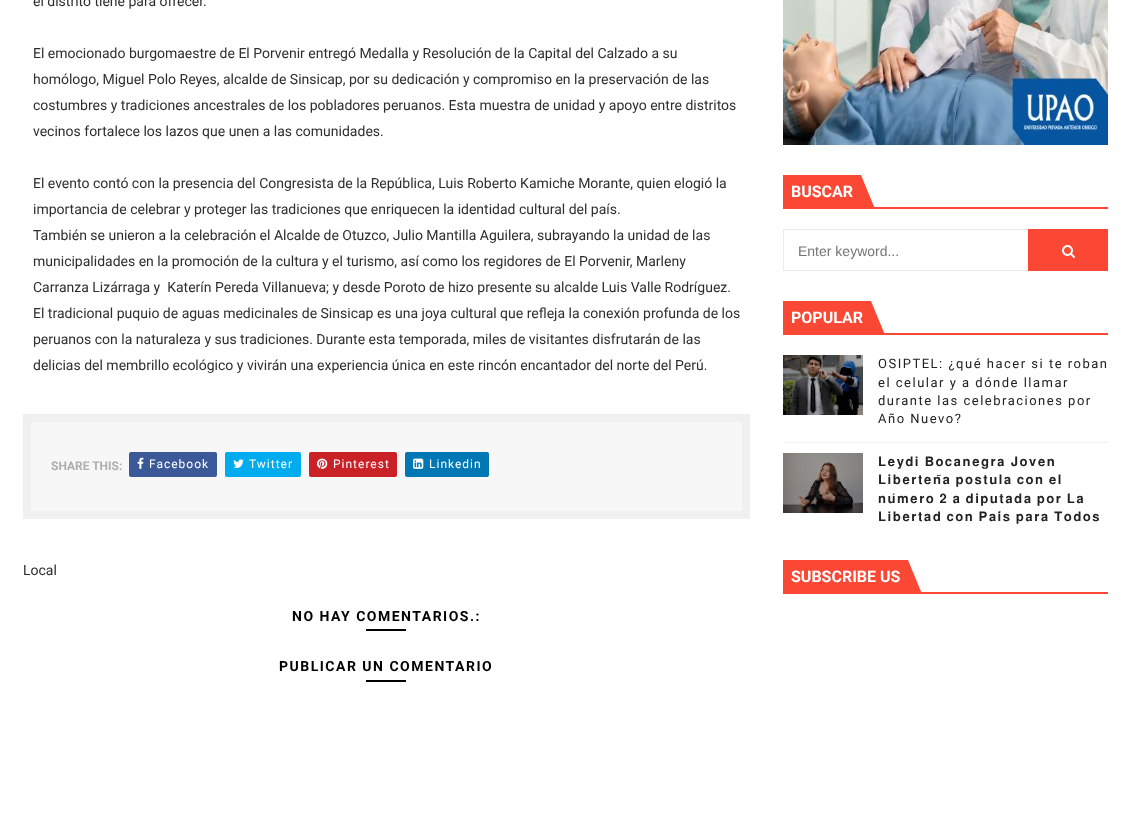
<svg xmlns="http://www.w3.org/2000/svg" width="1131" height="832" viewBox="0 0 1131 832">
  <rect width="100%" height="100%" fill="#ffffff"/>
  <text x="33" y="6" font-family="Roboto" font-size="14" fill="#2e2e2e">el distrito tiene para ofrecer.</text>
  <text x="33" y="58" font-family="Roboto" font-size="14" fill="#2e2e2e">El emocionado burgomaestre de El Porvenir entregó Medalla y Resolución de la Capital del Calzado a su</text>
  <text x="33" y="84" font-family="Roboto" font-size="14" fill="#2e2e2e">homólogo, Miguel Polo Reyes, alcalde de Sinsicap, por su dedicación y compromiso en la preservación de las</text>
  <text x="33" y="110" font-family="Roboto" font-size="14" fill="#2e2e2e">costumbres y tradiciones ancestrales de los pobladores peruanos. Esta muestra de unidad y apoyo entre distritos</text>
  <text x="33" y="136" font-family="Roboto" font-size="14" fill="#2e2e2e">vecinos fortalece los lazos que unen a las comunidades.</text>
  <text x="33" y="188" font-family="Roboto" font-size="14" fill="#2e2e2e">El evento contó con la presencia del Congresista de la República, Luis Roberto Kamiche Morante, quien elogió la</text>
  <text x="33" y="214" font-family="Roboto" font-size="14" fill="#2e2e2e">importancia de celebrar y proteger las tradiciones que enriquecen la identidad cultural del país.</text>
  <text x="33" y="240" font-family="Roboto" font-size="14" fill="#2e2e2e">También se unieron a la celebración el Alcalde de Otuzco, Julio Mantilla Aguilera, subrayando la unidad de las</text>
  <text x="33" y="266" font-family="Roboto" font-size="14" fill="#2e2e2e">municipalidades en la promoción de la cultura y el turismo, así como los regidores de El Porvenir, Marleny</text>
  <text x="33" y="292" font-family="Roboto" font-size="14" fill="#2e2e2e" xml:space="preserve">Carranza Lizárraga y  Katerín Pereda Villanueva; y desde Poroto de hizo presente su alcalde Luis Valle Rodríguez.</text>
  <text x="33" y="318" font-family="Roboto" font-size="14" fill="#2e2e2e">El tradicional puquio de aguas medicinales de Sinsicap es una joya cultural que refleja la conexión profunda de los</text>
  <text x="33" y="344" font-family="Roboto" font-size="14" fill="#2e2e2e">peruanos con la naturaleza y sus tradiciones. Durante esta temporada, miles de visitantes disfrutarán de las</text>
  <text x="33" y="370" font-family="Roboto" font-size="14" fill="#2e2e2e">delicias del membrillo ecológico y vivirán una experiencia única en este rincón encantador del norte del Perú.</text>
  <rect x="27" y="418" width="719" height="97" fill="#f7f7f7" stroke="#f0f0f0" stroke-width="8"/>
  <text x="51" y="470" font-family="Roboto" font-size="12" font-weight="bold" fill="#aeaeae">SHARE THIS:</text>
  <rect x="129" y="452" width="88" height="25" rx="2" fill="#3b5998"/>
  <image x="137" y="457" width="7" height="12" href="img1.png"/>
  <text x="149" y="468" font-family="Roboto" font-size="12" letter-spacing="1" fill="#ffffff">Facebook</text>
  <rect x="225" y="452" width="76" height="25" rx="2" fill="#00acee"/>
  <image x="233" y="459" width="11" height="9" href="img2.png"/>
  <text x="249" y="468" font-family="Roboto" font-size="12" letter-spacing="1" fill="#ffffff">Twitter</text>
  <rect x="309" y="452" width="88" height="25" rx="2" fill="#ca2127"/>
  <image x="317" y="458" width="11" height="11" href="img3.png"/>
  <text x="333" y="468" font-family="Roboto" font-size="12" letter-spacing="1" fill="#ffffff">Pinterest</text>
  <rect x="405" y="452" width="84" height="25" rx="2" fill="#0077b5"/>
  <image x="413" y="458" width="11" height="11" href="img4.png"/>
  <text x="429" y="468" font-family="Roboto" font-size="12" letter-spacing="1" fill="#ffffff">Linkedin</text>
  <text x="23" y="575" font-family="Roboto" font-size="14" fill="#2e2e2e">Local</text>
  <text x="292" y="621" font-family="Roboto" font-size="14" font-weight="bold" letter-spacing="1.5" fill="#000000">NO HAY COMENTARIOS.:</text>
  <rect x="366" y="629" width="40" height="2" fill="#000000"/>
  <text x="279" y="671" font-family="Roboto" font-size="14" font-weight="bold" letter-spacing="1.5" fill="#000000">PUBLICAR UN COMENTARIO</text>
  <rect x="366" y="680" width="40" height="2" fill="#000000"/>
  <image x="783" y="0" width="325" height="145" href="img5.png"/>
  <rect x="874" y="207" width="234" height="2" fill="#fb4834"/>
  <rect x="783" y="175" width="78" height="34" fill="#fb4834"/>
  <text x="791" y="197" font-family="Roboto" font-size="16" font-weight="bold" fill="#ffffff">BUSCAR</text>
  <path d="M875 209H861V175Z" fill="#fb4834"/>
  <rect x="783.5" y="229.5" width="324" height="41" fill="none" stroke="#ebebeb"/>
  <text x="798" y="256" font-family="Liberation Sans" font-size="14" fill="#757575">Enter keyword...</text>
  <rect x="1028" y="229" width="80" height="42" fill="#fb4834"/>
  <image x="1062" y="245" width="13" height="13" href="img6.png"/>
  <rect x="884" y="333" width="224" height="2" fill="#fb4834"/>
  <rect x="783" y="301" width="88" height="34" fill="#fb4834"/>
  <text x="791" y="323" font-family="Roboto" font-size="16" font-weight="bold" fill="#ffffff">POPULAR</text>
  <path d="M885 335H871V301Z" fill="#fb4834"/>
  <image x="783" y="355" width="80" height="60" href="img7.png"/>
  <text x="878" y="368" font-family="Roboto" font-size="13" letter-spacing="1.5" fill="#222222">OSIPTEL: ¿qué hacer si te roban</text>
  <text x="878" y="387" font-family="Roboto" font-size="13" letter-spacing="1.5" fill="#222222">el celular y a dónde llamar</text>
  <text x="878" y="405" font-family="Roboto" font-size="13" letter-spacing="1.5" fill="#222222">durante las celebraciones por</text>
  <text x="878" y="423" font-family="Roboto" font-size="13" letter-spacing="1.5" fill="#222222">Año Nuevo?</text>
  <rect x="783" y="442" width="325" height="1" fill="#f2f2f2"/>
  <image x="783" y="453" width="80" height="60" href="img8.png"/>
  <text x="878" y="466" font-family="FreeSans" font-size="13" letter-spacing="1.5" fill="#222222">𝐋𝐞𝐲𝐝𝐢 𝐁𝐨𝐜𝐚𝐧𝐞𝐠𝐫𝐚 𝐉𝐨𝐯𝐞𝐧</text>
  <text x="878" y="484" word-spacing="-0.5" font-family="FreeSans" font-size="13" letter-spacing="1.5" fill="#222222">𝐋𝐢𝐛𝐞𝐫𝐭𝐞𝐧̃𝐚 𝐩𝐨𝐬𝐭𝐮𝐥𝐚 𝐜𝐨𝐧 𝐞𝐥</text>
  <text x="878" y="503" word-spacing="-0.5" font-family="FreeSans" font-size="13" letter-spacing="1.5" fill="#222222">𝐧𝐮́𝐦𝐞𝐫𝐨 𝟐 𝐚 𝐝𝐢𝐩𝐮𝐭𝐚𝐝𝐚 𝐩𝐨𝐫 𝐋𝐚</text>
  <text x="878" y="521" word-spacing="-0.5" font-family="FreeSans" font-size="13" letter-spacing="1.5" fill="#222222">𝐋𝐢𝐛𝐞𝐫𝐭𝐚𝐝 𝐜𝐨𝐧 𝐏𝐚𝐢́𝐬 𝐩𝐚𝐫𝐚 𝐓𝐨𝐝𝐨𝐬</text>
  <rect x="921" y="592" width="187" height="2" fill="#fb4834"/>
  <rect x="783" y="560" width="125" height="34" fill="#fb4834"/>
  <text x="791" y="582" font-family="Roboto" font-size="16" font-weight="bold" fill="#ffffff">SUBSCRIBE US</text>
  <path d="M922 594H908V560Z" fill="#fb4834"/>
</svg>
